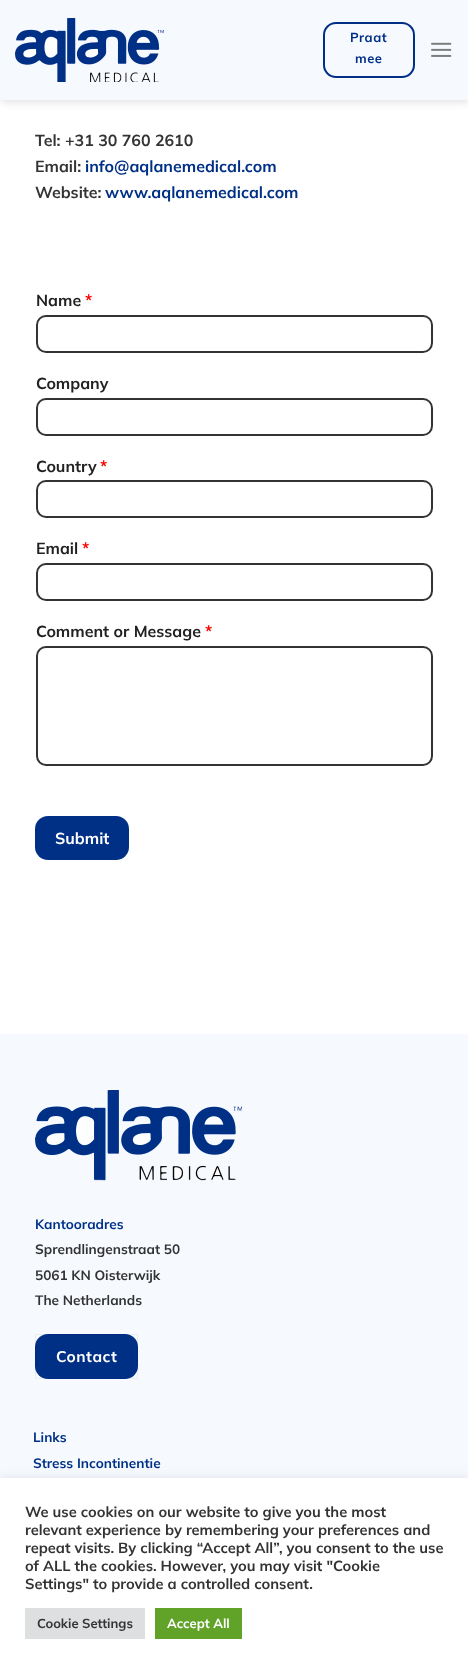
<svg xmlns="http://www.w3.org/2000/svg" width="468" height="1669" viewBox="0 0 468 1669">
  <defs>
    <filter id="blur1" x="-50%" y="-200%" width="200%" height="500%"><feGaussianBlur stdDeviation="5"/></filter>
  </defs>
  <rect width="100%" height="100%" fill="#f6faff"/>
  <rect x="0" y="100" width="468" height="934" fill="#ffffff"/>
  <rect x="1" y="1" width="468" height="100" fill="#000000" fill-opacity="0.15" filter="url(#blur1)"/>
  <rect x="0" y="0" width="468" height="100" fill="#f6faff"/>
  <image x="15" y="18" width="149" height="64" href="img1.png"/>
  <rect x="324" y="23" width="90" height="54" rx="12" fill="none" stroke="#003086" stroke-width="2"/>
  <text x="350" y="42" font-family="Mulish" font-size="13" font-weight="bold" letter-spacing="0.5" fill="#003086">Praat</text>
  <text x="355" y="63" font-family="Mulish" font-size="13" font-weight="bold" letter-spacing="0.5" fill="#003086">mee</text>
  <image x="431" y="42" width="21" height="15" href="img2.png"/>
  <text x="35" y="146" font-family="Mulish" font-size="16" font-weight="bold" fill="#333333">Tel: +31 30 760 2610</text>
  <text x="35" y="172" font-family="Mulish" font-size="16" font-weight="bold" fill="#333333">Email:</text>
  <text x="85" y="172" font-family="Mulish" font-size="16" font-weight="bold" fill="#003086">info@aqlanemedical.com</text>
  <text x="35" y="198" font-family="Mulish" font-size="16" font-weight="bold" fill="#333333">Website:</text>
  <text x="105" y="198" font-family="Mulish" font-size="16" font-weight="bold" fill="#003086">www.aqlanemedical.com</text>
  <text x="36" y="306" font-family="Mulish" font-size="16" font-weight="bold" fill="#222222">Name</text>
  <text x="85" y="306" font-family="Mulish" font-size="16" font-weight="bold" fill="#ff0000">*</text>
  <rect x="37" y="316" width="395" height="36" rx="9" fill="none" stroke="#333333" stroke-width="2"/>
  <text x="36" y="389" font-family="Mulish" font-size="16" font-weight="bold" fill="#222222">Company</text>
  <rect x="37" y="399" width="395" height="36" rx="9" fill="none" stroke="#333333" stroke-width="2"/>
  <text x="36" y="472" font-family="Mulish" font-size="16" font-weight="bold" fill="#222222">Country</text>
  <text x="100" y="472" font-family="Mulish" font-size="16" font-weight="bold" fill="#ff0000">*</text>
  <rect x="37" y="481" width="395" height="36" rx="9" fill="none" stroke="#333333" stroke-width="2"/>
  <text x="36" y="554" font-family="Mulish" font-size="16" font-weight="bold" fill="#222222">Email</text>
  <text x="82" y="554" font-family="Mulish" font-size="16" font-weight="bold" fill="#ff0000">*</text>
  <rect x="37" y="564" width="395" height="36" rx="9" fill="none" stroke="#333333" stroke-width="2"/>
  <text x="36" y="637" font-family="Mulish" font-size="16" font-weight="bold" fill="#222222">Comment or Message</text>
  <text x="205" y="637" font-family="Mulish" font-size="16" font-weight="bold" fill="#ff0000">*</text>
  <rect x="37" y="647" width="395" height="118" rx="9" fill="none" stroke="#333333" stroke-width="2"/>
  <rect x="35" y="816" width="94" height="44" rx="13" fill="#003086"/>
  <text x="55" y="844" font-family="Mulish" font-size="16" font-weight="bold" fill="#ffffff">Submit</text>
  <image x="35" y="1090" width="207" height="91" href="img3.png"/>
  <text x="35" y="1229" font-family="Mulish" font-size="13.6" font-weight="bold" fill="#003086">Kantooradres</text>
  <text x="35" y="1254" font-family="Mulish" font-size="13.6" font-weight="bold" fill="#333333">Sprendlingenstraat 50</text>
  <text x="35" y="1280" font-family="Mulish" font-size="13.6" font-weight="bold" fill="#333333">5061 KN Oisterwijk</text>
  <text x="35" y="1305" font-family="Mulish" font-size="13.6" font-weight="bold" fill="#333333">The Netherlands</text>
  <rect x="35" y="1334" width="103" height="45" rx="13" fill="#003086"/>
  <rect x="35.5" y="1334.5" width="102" height="44" fill="none" stroke="#000000" stroke-opacity="0.05"/>
  <text x="56" y="1362" font-family="Mulish" font-size="15.5" font-weight="bold" letter-spacing="0.5" fill="#ffffff">Contact</text>
  <text x="33" y="1442" font-family="Mulish" font-size="13.6" font-weight="bold" fill="#003086">Links</text>
  <text x="33" y="1468" font-family="Mulish" font-size="13.6" font-weight="bold" fill="#003086">Stress Incontinentie</text>
  <rect x="0" y="1477" width="468" height="191" fill="#acabab" fill-opacity="0.3" filter="url(#blur1)"/>
  <rect x="0" y="1478" width="468" height="191" fill="#ffffff"/>
  <text x="25" y="1517" font-family="Mulish" font-size="14.7" font-weight="bold" fill="#333333">We use cookies on our website to give you the most</text>
  <text x="25" y="1535" font-family="Mulish" font-size="14.7" font-weight="bold" fill="#333333">relevant experience by remembering your preferences and</text>
  <text x="25" y="1553" font-family="Mulish" font-size="14.7" font-weight="bold" fill="#333333">repeat visits. By clicking “Accept All”, you consent to the use</text>
  <text x="25" y="1571" font-family="Mulish" font-size="14.7" font-weight="bold" fill="#333333">of ALL the cookies. However, you may visit "Cookie</text>
  <text x="25" y="1589" font-family="Mulish" font-size="14.7" font-weight="bold" fill="#333333">Settings" to provide a controlled consent.</text>
  <rect x="25" y="1608" width="120" height="31" fill="#dedfe0"/>
  <text x="37" y="1628" font-family="Mulish" font-size="13" font-weight="bold" fill="#333333">Cookie Settings</text>
  <rect x="155" y="1608" width="87" height="31" fill="#61a229"/>
  <text x="167" y="1628" font-family="Mulish" font-size="13" font-weight="bold" fill="#ffffff">Accept All</text>
</svg>
